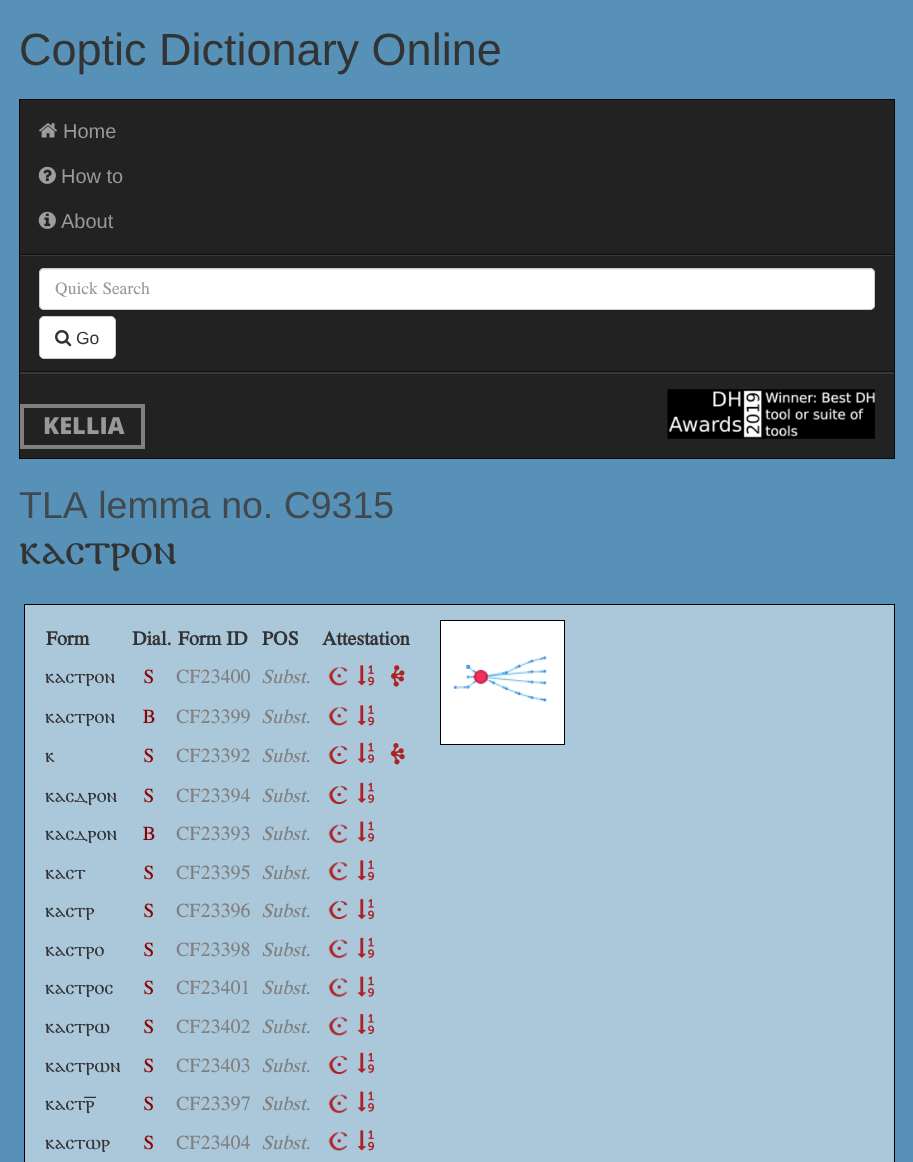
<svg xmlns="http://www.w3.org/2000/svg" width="913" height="1162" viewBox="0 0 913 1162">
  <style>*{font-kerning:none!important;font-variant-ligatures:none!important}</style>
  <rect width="100%" height="100%" fill="#5791b7"/>
  <text x="19" y="65" font-family="Liberation Sans" font-size="45" fill="#333333">Coptic Dictionary Online</text>
  <rect x="19.5" y="99.5" width="875" height="359" fill="#222222" stroke="#080808"/>
  <image x="39" y="123" width="18" height="15" href="img1.png"/>
  <text x="63" y="138" font-family="Liberation Sans" font-size="20" fill="#999999">Home</text>
  <image x="38" y="166" width="18" height="18" href="img2.png"/>
  <text x="61" y="183" font-family="Liberation Sans" font-size="20" fill="#999999">How to</text>
  <image x="38" y="211" width="18" height="18" href="img3.png"/>
  <text x="61" y="228" font-family="Liberation Sans" font-size="20" fill="#999999">About</text>
  <path d="M20 372V374H894V255V372Z" fill="#383838"/>
  <rect x="20" y="255" width="874" height="1" fill="#383838"/>
  <rect x="20" y="254" width="874" height="1" fill="#101010"/>
  <rect x="20" y="371" width="874" height="1" fill="#101010"/>
  <rect x="39" y="268" width="836" height="42" rx="5" fill="#ffffff"/>
  <path d="M44 270H870C872 270 874 272 874 274C874 271 873 269 870 269H44C41 269 40 271 40 274C40 272 42 270 44 270Z" fill="#ececec"/>
  <rect x="39.5" y="268.5" width="835" height="41" rx="4.5" fill="none" stroke="#cccccc"/>
  <text x="55" y="294" font-family="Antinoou" font-size="17.5" fill="#999999">Quick Search</text>
  <rect x="39.5" y="316.5" width="76" height="42" rx="4.5" fill="#ffffff" stroke="#cccccc"/>
  <image x="55" y="330" width="17" height="17" href="img4.png"/>
  <text x="76" y="344" font-family="Liberation Sans" font-size="17.5" fill="#333333">Go</text>
  <rect x="22" y="406" width="121" height="41" fill="none" stroke="#808080" stroke-width="4"/>
  <text x="43" y="434" font-family="Open Sans" font-size="23.5" font-weight="800" fill="#999999">KELLIA</text>
  <image x="667" y="389" width="208" height="50" href="img5.png"/>
  <text x="19" y="518" font-family="Liberation Sans" font-size="37.5" fill="#41494e">TLA lemma no. C9315</text>
  <text x="19" y="564" font-family="Antinoou" font-size="45" fill="#333333">ⲕⲁⲥⲧⲣⲟⲛ</text>
  <rect x="24.5" y="604.5" width="870" height="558" fill="#abc8db" stroke="#000000"/>
  <text x="46" y="645" font-family="Antinoou" font-size="20" font-weight="bold" fill="#333333">Form</text>
  <text x="132" y="645" font-family="Antinoou" font-size="20" font-weight="bold" fill="#333333">Dial.</text>
  <text x="178" y="645" font-family="Antinoou" font-size="20" font-weight="bold" fill="#333333">Form ID</text>
  <text x="262" y="645" font-family="Antinoou" font-size="20" font-weight="bold" fill="#333333">POS</text>
  <text x="322" y="645" font-family="Antinoou" font-size="20" font-weight="bold" fill="#333333">Attestation</text>
  <text x="45" y="683" font-family="Antinoou" font-size="20" fill="#333333">ⲕⲁⲥⲧⲣⲟⲛ</text>
  <text x="143" y="683" font-family="Antinoou" font-size="20" fill="#8b0000">S</text>
  <text x="176" y="683" font-family="Antinoou" font-size="20" fill="#808080">CF23400</text>
  <text x="261" y="683" font-family="Antinoou" font-size="20" font-style="italic" fill="#808080">Subst.</text>
  <image x="328" y="667" width="20" height="20" href="img6.png"/>
  <image x="357" y="665" width="18" height="21" href="img7.png"/>
  <image x="391" y="665" width="14" height="14" href="img8.png"/>
  <image x="391" y="673" width="13" height="14" href="img9.png"/>
  <text x="45" y="723" font-family="Antinoou" font-size="20" fill="#333333">ⲕⲁⲥⲧⲣⲟⲛ</text>
  <text x="142" y="723" font-family="Antinoou" font-size="20" fill="#8b0000">B</text>
  <text x="176" y="723" font-family="Antinoou" font-size="20" fill="#808080">CF23399</text>
  <text x="261" y="723" font-family="Antinoou" font-size="20" font-style="italic" fill="#808080">Subst.</text>
  <image x="328" y="707" width="20" height="20" href="img6.png"/>
  <image x="357" y="705" width="18" height="21" href="img7.png"/>
  <text x="45" y="762" font-family="Antinoou" font-size="20" fill="#333333">ⲕ</text>
  <text x="143" y="762" font-family="Antinoou" font-size="20" fill="#8b0000">S</text>
  <text x="176" y="762" font-family="Antinoou" font-size="20" fill="#808080">CF23392</text>
  <text x="261" y="762" font-family="Antinoou" font-size="20" font-style="italic" fill="#808080">Subst.</text>
  <image x="328" y="746" width="20" height="19" href="img10.png"/>
  <image x="357" y="742" width="18" height="21" href="img11.png"/>
  <image x="390" y="743" width="14" height="13" href="img12.png"/>
  <image x="392" y="751" width="13" height="14" href="img13.png"/>
  <text x="45" y="802" font-family="Antinoou" font-size="20" fill="#333333">ⲕⲁⲥⲇⲣⲟⲛ</text>
  <text x="143" y="802" font-family="Antinoou" font-size="20" fill="#8b0000">S</text>
  <text x="176" y="802" font-family="Antinoou" font-size="20" fill="#808080">CF23394</text>
  <text x="261" y="802" font-family="Antinoou" font-size="20" font-style="italic" fill="#808080">Subst.</text>
  <image x="328" y="786" width="20" height="19" href="img10.png"/>
  <image x="357" y="782" width="18" height="21" href="img11.png"/>
  <text x="45" y="840" font-family="Antinoou" font-size="20" fill="#333333">ⲕⲁⲥⲇⲣⲟⲛ</text>
  <text x="142" y="840" font-family="Antinoou" font-size="20" fill="#8b0000">B</text>
  <text x="176" y="840" font-family="Antinoou" font-size="20" fill="#808080">CF23393</text>
  <text x="261" y="840" font-family="Antinoou" font-size="20" font-style="italic" fill="#808080">Subst.</text>
  <image x="328" y="824" width="20" height="20" href="img14.png"/>
  <image x="357" y="821" width="18" height="21" href="img15.png"/>
  <text x="45" y="879" font-family="Antinoou" font-size="20" fill="#333333">ⲕⲁⲥⲧ</text>
  <text x="143" y="879" font-family="Antinoou" font-size="20" fill="#8b0000">S</text>
  <text x="176" y="879" font-family="Antinoou" font-size="20" fill="#808080">CF23395</text>
  <text x="261" y="879" font-family="Antinoou" font-size="20" font-style="italic" fill="#808080">Subst.</text>
  <image x="328" y="862" width="20" height="20" href="img6.png"/>
  <image x="357" y="860" width="18" height="21" href="img7.png"/>
  <text x="45" y="917" font-family="Antinoou" font-size="20" fill="#333333">ⲕⲁⲥⲧⲣ</text>
  <text x="143" y="917" font-family="Antinoou" font-size="20" fill="#8b0000">S</text>
  <text x="176" y="917" font-family="Antinoou" font-size="20" fill="#808080">CF23396</text>
  <text x="261" y="917" font-family="Antinoou" font-size="20" font-style="italic" fill="#808080">Subst.</text>
  <image x="328" y="901" width="20" height="19" href="img10.png"/>
  <image x="357" y="899" width="18" height="21" href="img16.png"/>
  <text x="45" y="956" font-family="Antinoou" font-size="20" fill="#333333">ⲕⲁⲥⲧⲣⲟ</text>
  <text x="143" y="956" font-family="Antinoou" font-size="20" fill="#8b0000">S</text>
  <text x="176" y="956" font-family="Antinoou" font-size="20" fill="#808080">CF23398</text>
  <text x="261" y="956" font-family="Antinoou" font-size="20" font-style="italic" fill="#808080">Subst.</text>
  <image x="328" y="939" width="20" height="20" href="img14.png"/>
  <image x="357" y="937" width="18" height="21" href="img11.png"/>
  <text x="45" y="994" font-family="Antinoou" font-size="20" fill="#333333">ⲕⲁⲥⲧⲣⲟⲥ</text>
  <text x="143" y="994" font-family="Antinoou" font-size="20" fill="#8b0000">S</text>
  <text x="176" y="994" font-family="Antinoou" font-size="20" fill="#808080">CF23401</text>
  <text x="261" y="994" font-family="Antinoou" font-size="20" font-style="italic" fill="#808080">Subst.</text>
  <image x="328" y="978" width="20" height="20" href="img17.png"/>
  <image x="357" y="976" width="18" height="21" href="img15.png"/>
  <text x="45" y="1033" font-family="Antinoou" font-size="20" fill="#333333">ⲕⲁⲥⲧⲣⲱ</text>
  <text x="143" y="1033" font-family="Antinoou" font-size="20" fill="#8b0000">S</text>
  <text x="176" y="1033" font-family="Antinoou" font-size="20" fill="#808080">CF23402</text>
  <text x="261" y="1033" font-family="Antinoou" font-size="20" font-style="italic" fill="#808080">Subst.</text>
  <image x="328" y="1017" width="20" height="20" href="img6.png"/>
  <image x="357" y="1014" width="18" height="21" href="img16.png"/>
  <text x="45" y="1072" font-family="Antinoou" font-size="20" fill="#333333">ⲕⲁⲥⲧⲣⲱⲛ</text>
  <text x="143" y="1072" font-family="Antinoou" font-size="20" fill="#8b0000">S</text>
  <text x="176" y="1072" font-family="Antinoou" font-size="20" fill="#808080">CF23403</text>
  <text x="261" y="1072" font-family="Antinoou" font-size="20" font-style="italic" fill="#808080">Subst.</text>
  <image x="328" y="1056" width="20" height="19" href="img10.png"/>
  <image x="357" y="1052" width="18" height="21" href="img11.png"/>
  <text x="45" y="1110" font-family="Antinoou" font-size="20" fill="#333333">ⲕⲁⲥⲧⲣ︦</text>
  <text x="143" y="1110" font-family="Antinoou" font-size="20" fill="#8b0000">S</text>
  <text x="176" y="1110" font-family="Antinoou" font-size="20" fill="#808080">CF23397</text>
  <text x="261" y="1110" font-family="Antinoou" font-size="20" font-style="italic" fill="#808080">Subst.</text>
  <image x="328" y="1094" width="20" height="20" href="img14.png"/>
  <image x="357" y="1091" width="18" height="21" href="img15.png"/>
  <text x="45" y="1149" font-family="Antinoou" font-size="20" fill="#333333">ⲕⲁⲥⲧⲱⲣ</text>
  <text x="143" y="1149" font-family="Antinoou" font-size="20" fill="#8b0000">S</text>
  <text x="176" y="1149" font-family="Antinoou" font-size="20" fill="#808080">CF23404</text>
  <text x="261" y="1149" font-family="Antinoou" font-size="20" font-style="italic" fill="#808080">Subst.</text>
  <image x="328" y="1132" width="20" height="20" href="img6.png"/>
  <image x="357" y="1130" width="18" height="21" href="img7.png"/>
  <rect x="441" y="621" width="123" height="123" fill="#ffffff"/>
  <image x="453" y="656" width="94" height="46" href="img18.png"/>
  <rect x="440.5" y="620.5" width="124" height="124" fill="none" stroke="#000000"/>
</svg>
